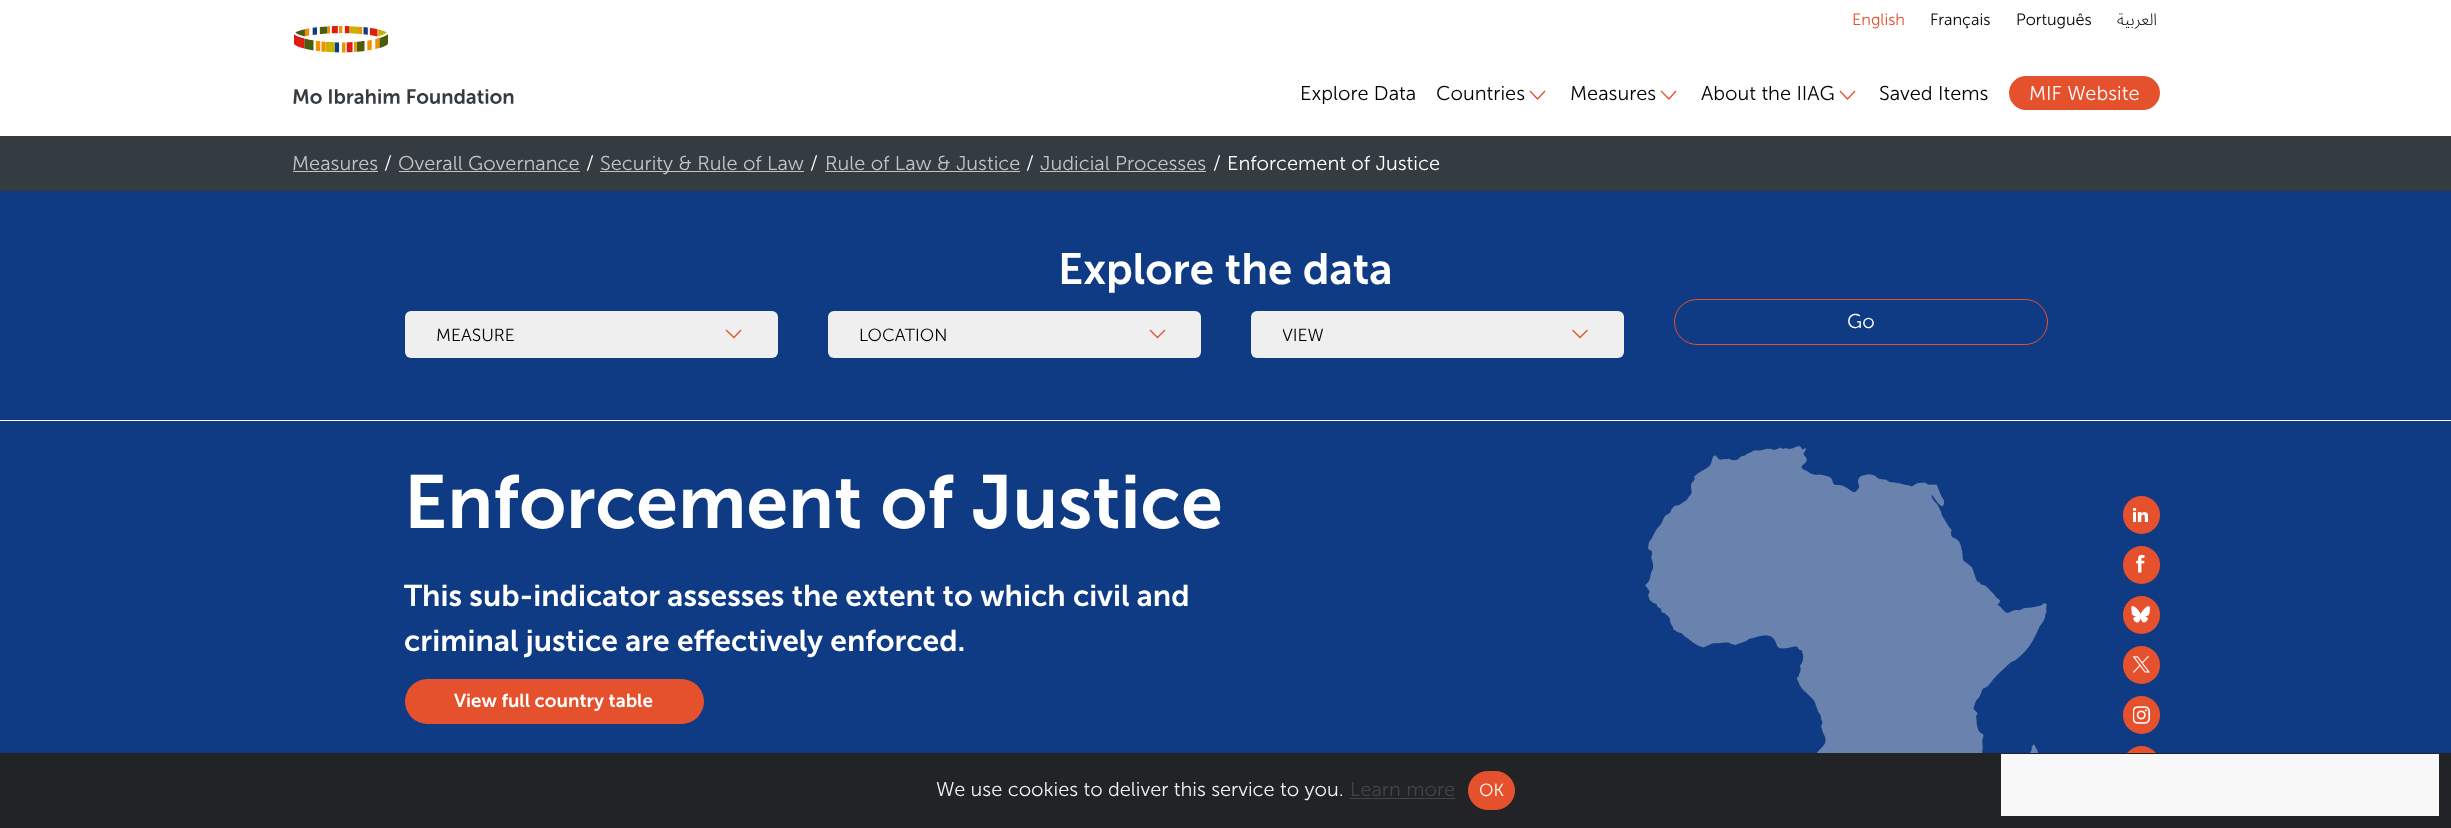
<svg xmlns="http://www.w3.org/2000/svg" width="2451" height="828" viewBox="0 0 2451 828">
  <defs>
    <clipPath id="clip1"><rect x="1283" y="311" width="285" height="47"/></clipPath>
  </defs>
  <rect width="100%" height="100%" fill="#ffffff"/>
  <text x="1852" y="25" font-family="'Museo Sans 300'" font-size="16.25" font-weight="300" fill="#e6512d">English</text>
  <text x="1930" y="25" font-family="'Museo Sans 300'" font-size="16.25" font-weight="300" fill="#000000">Français</text>
  <text x="2016" y="25" font-family="'Museo Sans 300'" font-size="16.25" font-weight="300" fill="#000000">Português</text>
  <text x="2157" y="25" font-family="Noto Sans Arabic" font-size="16.25" font-weight="300" direction="rtl" fill="#000000">العربية</text>
  <image x="293" y="26" width="221" height="78" href="img1.png"/>
  <text x="1300" y="100" font-family="'Museo Sans 300'" font-size="20" font-weight="300" fill="#000000">Explore Data</text>
  <text x="1436" y="100" font-family="'Museo Sans 300'" font-size="20" font-weight="300" fill="#000000">Countries</text>
  <path d="M1545 91L1537.5 99L1530 91" fill="none" stroke="#e6512d" stroke-width="1.3"/>
  <text x="1570" y="100" font-family="'Museo Sans 300'" font-size="20" font-weight="300" fill="#000000">Measures</text>
  <path d="M1676 91L1669 99L1661 91" fill="none" stroke="#e6512d" stroke-width="1.3"/>
  <text x="1701" y="100" font-family="'Museo Sans 300'" font-size="20" font-weight="300" fill="#000000">About the IIAG</text>
  <path d="M1855 91L1847.5 99L1840 91" fill="none" stroke="#e6512d" stroke-width="1.3"/>
  <text x="1879" y="100" font-family="'Museo Sans 300'" font-size="20" font-weight="300" fill="#000000">Saved Items</text>
  <rect x="2009" y="76" width="151" height="34" rx="17" fill="#e6512d"/>
  <text x="2029" y="100" font-family="'Museo Sans 300'" font-size="20" font-weight="300" fill="#ffffff">MIF Website</text>
  <rect x="0" y="136" width="2451" height="55" fill="#343c42"/>
  <text x="292" y="170" font-family="'Museo Sans 300'" font-size="20" font-weight="300" fill="#c3c3c3">Measures</text>
  <rect x="293" y="171" width="85" height="1" fill="#c3c3c3"/>
  <text x="384" y="170" font-family="'Museo Sans 300'" font-size="20" font-weight="300" fill="#ffffff">/</text>
  <text x="398" y="170" font-family="'Museo Sans 300'" font-size="20" font-weight="300" fill="#c3c3c3">Overall Governance</text>
  <rect x="399" y="171" width="181" height="1" fill="#c3c3c3"/>
  <text x="586" y="170" font-family="'Museo Sans 300'" font-size="20" font-weight="300" fill="#ffffff">/</text>
  <rect x="600" y="171" width="204" height="1" fill="#c3c3c3"/>
  <text x="600" y="170" font-family="'Museo Sans 300'" font-size="20" font-weight="300" fill="#c3c3c3">Security &amp; Rule of Law</text>
  <text x="810" y="170" font-family="'Museo Sans 300'" font-size="20" font-weight="300" fill="#ffffff">/</text>
  <text x="825" y="170" font-family="'Museo Sans 300'" font-size="20" font-weight="300" fill="#c3c3c3">Rule of Law &amp; Justice</text>
  <rect x="825" y="171" width="195" height="1" fill="#c3c3c3"/>
  <text x="1026" y="170" font-family="'Museo Sans 300'" font-size="20" font-weight="300" fill="#ffffff">/</text>
  <text x="1040" y="170" font-family="'Museo Sans 300'" font-size="20" font-weight="300" fill="#c3c3c3">Judicial Processes</text>
  <rect x="1040" y="171" width="166" height="1" fill="#c3c3c3"/>
  <text x="1213" y="170" font-family="'Museo Sans 300'" font-size="20" font-weight="300" fill="#ffffff">/</text>
  <text x="1227" y="170" font-family="'Museo Sans 300'" font-size="20" font-weight="300" fill="#ffffff">Enforcement of Justice</text>
  <rect x="0" y="191" width="2451" height="229" fill="#0e3b83"/>
  <text x="1058" y="284" font-family="'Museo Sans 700'" font-size="43.75" font-weight="600" fill="#ffffff">Explore the data</text>
  <rect x="1674.5" y="299.5" width="373" height="45" rx="22.5" fill="none" stroke="#e6512d"/>
  <text x="1847" y="328" font-family="'Museo Sans 300'" font-size="20" font-weight="300" fill="#ffffff">Go</text>
  <rect x="405" y="311" width="373" height="47" rx="6" fill="#efefef"/>
  <text x="436" y="341" font-family="'Museo Sans 300'" font-size="17.5" font-weight="300" fill="#000000">MEASURE</text>
  <path d="M741 330L734 337.5L726 330" fill="none" stroke="#e6512d" stroke-width="1.3"/>
  <rect x="828" y="311" width="373" height="47" rx="6" fill="#efefef"/>
  <text x="859" y="341" font-family="'Museo Sans 300'" font-size="17.5" font-weight="300" fill="#000000">LOCATION</text>
  <path d="M1165 330L1157.5 337.5L1150 330" fill="none" stroke="#e6512d" stroke-width="1.3"/>
  <rect x="1251" y="311" width="373" height="47" rx="6" fill="#efefef"/>
  <g clip-path="url(#clip1)">
    <text x="1282" y="341" font-family="'Museo Sans 300'" font-size="17.5" font-weight="300" fill="#000000">VIEW</text>
  </g>
  <path d="M1587.5 330L1580 337.5L1572.5 330" fill="none" stroke="#e6512d" stroke-width="1.3"/>
  <rect x="0" y="421" width="2451" height="332" fill="#0e3b83"/>
  <image x="1645" y="446" width="402" height="307" href="img2.png"/>
  <text x="404" y="528" font-family="'Museo Sans 700'" font-size="75" font-weight="600" fill="#ffffff">Enforcement of Justice</text>
  <text x="404" y="606" font-family="'Museo Sans 700'" font-size="30" font-weight="600" fill="#ffffff">This sub-indicator assesses the extent to which civil and</text>
  <text x="404" y="651" font-family="'Museo Sans 700'" font-size="30" font-weight="600" fill="#ffffff">criminal justice are effectively enforced.</text>
  <rect x="405" y="679" width="299" height="45" rx="22.5" fill="#e6512d"/>
  <text x="454" y="707" font-family="'Museo Sans 700'" font-size="18.75" font-weight="600" fill="#ffffff">View full country table</text>
  <rect x="2123" y="496" width="37" height="38" rx="18.5" fill="#e6512d"/>
  <image x="2133" y="508" width="15" height="14" href="img3.png"/>
  <rect x="2123" y="546" width="37" height="38" rx="18.5" fill="#e6512d"/>
  <image x="2136" y="555" width="9" height="18" href="img4.png"/>
  <rect x="2123" y="596" width="37" height="38" rx="18.5" fill="#e6512d"/>
  <image x="2131" y="606" width="19" height="17" href="img5.png"/>
  <rect x="2123" y="646" width="37" height="38" rx="18.5" fill="#e6512d"/>
  <image x="2133" y="656" width="17" height="17" href="img6.png"/>
  <rect x="2123" y="696" width="37" height="38" rx="18.5" fill="#e6512d"/>
  <image x="2133" y="706" width="17" height="18" href="img7.png"/>
  <rect x="2123" y="746" width="37" height="38" rx="18.5" fill="#e6512d"/>
  <rect x="0" y="753" width="2451" height="75" fill="#212327"/>
  <text x="936" y="796" font-family="'Museo Sans 300'" font-size="20" font-weight="300" fill="#ecf0f1">We use cookies to deliver this service to you.</text>
  <text x="1350" y="796" font-family="'Museo Sans 300'" font-size="20" font-weight="300" fill="#444444">Learn more</text>
  <rect x="1350" y="798" width="105" height="1" fill="#444444"/>
  <rect x="1468.5" y="771.5" width="46" height="38" rx="19" fill="#e6512d" stroke="#e6512d"/>
  <text x="1479" y="796" font-family="'Museo Sans 300'" font-size="17.5" font-weight="300" fill="#ffffff">OK</text>
  <rect x="2001" y="754" width="438" height="62" fill="#f8f8f8"/>
</svg>
